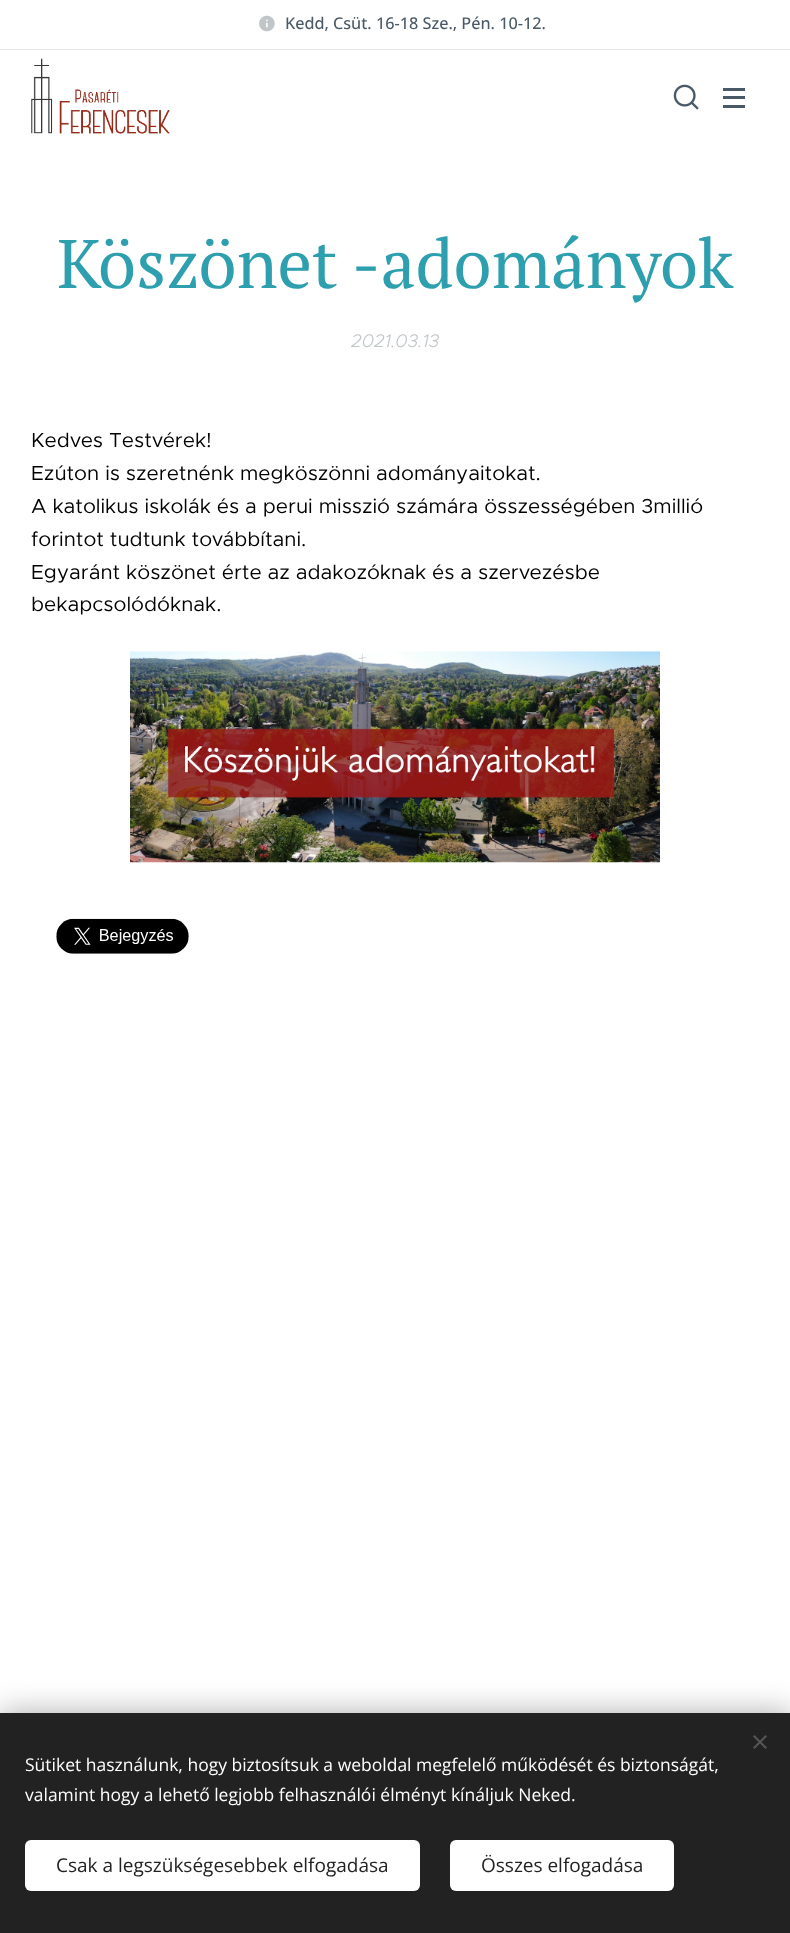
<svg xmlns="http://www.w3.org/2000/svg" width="790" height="1933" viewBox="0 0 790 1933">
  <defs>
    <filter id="blur1" x="-50%" y="-200%" width="200%" height="500%"><feGaussianBlur stdDeviation="15.5"/></filter>
  </defs>
  <rect width="100%" height="100%" fill="#ffffff"/>
  <image x="259" y="15" width="16" height="17" href="img1.png"/>
  <text x="285" y="29" font-family="Open Sans" font-size="16.25" font-weight="500" fill="#495968">Kedd, Csüt. 16-18 Sze., Pén. 10-12.</text>
  <rect x="0" y="49" width="790" height="1" fill="#e8e8e8"/>
  <image x="31" y="58" width="139" height="76" href="img2.png"/>
  <image x="673" y="84" width="26" height="26" href="img3.png"/>
  <rect x="723" y="96" width="22" height="3" fill="#495968"/>
  <rect x="723" y="88" width="22" height="3" fill="#495968"/>
  <rect x="723" y="105" width="22" height="3" fill="#495968"/>
  <text x="57" y="288" font-family="PT Serif" font-size="68.75" fill="#2d9fae">Köszönet -adományok</text>
  <text x="351" y="347" font-family="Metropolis" font-size="18.25" font-weight="300" font-style="italic" fill="#c0c5c8">2021.03.13</text>
  <text x="31" y="447" font-family="Metropolis" font-size="20.5" fill="#000000">Kedves Testvérek!</text>
  <text x="31" y="480" font-family="Metropolis" font-size="20.5" fill="#000000">Ezúton is szeretnénk megköszönni adományaitokat.</text>
  <text x="31" y="513" font-family="Metropolis" font-size="20.5" fill="#000000">A katolikus iskolák és a perui misszió számára összességében 3millió</text>
  <text x="31" y="546" font-family="Metropolis" font-size="20.5" fill="#000000">forintot tudtunk továbbítani.</text>
  <text x="31" y="579" font-family="Metropolis" font-size="20.5" fill="#000000">Egyaránt köszönet érte az adakozóknak és a szervezésbe</text>
  <text x="31" y="611" font-family="Metropolis" font-size="20.5" fill="#000000">bekapcsolódóknak.</text>
  <image x="130" y="651" width="530" height="212" href="img4.png"/>
  <image x="56" y="918" width="133" height="36" href="img5.png"/>
  <rect x="0" y="1713" width="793" height="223" fill="#000000" fill-opacity="0.33" filter="url(#blur1)"/>
  <rect x="0" y="1713" width="790" height="220" fill="#222222"/>
  <path d="M753 1747.5L765.5 1735L767 1736.5L754.5 1749Z" fill="#555555"/>
  <path d="M754.5 1735L767 1747.5L765.5 1749L753 1736.5Z" fill="#555555"/>
  <text x="25" y="1771" font-family="Open Sans" font-size="17.5" fill="#ffffff">Sütiket használunk, hogy biztosítsuk a weboldal megfelelő működését és biztonságát,</text>
  <text x="25" y="1801" font-family="Open Sans" font-size="17.5" fill="#ffffff">valamint hogy a lehető legjobb felhasználói élményt kínáljuk Neked.</text>
  <rect x="25" y="1840" width="395" height="51" rx="6" fill="#ffffff"/>
  <text x="56" y="1872" font-family="Open Sans" font-size="19" fill="#222222">Csak a legszükségesebbek elfogadása</text>
  <rect x="450" y="1840" width="224" height="51" rx="6" fill="#ffffff"/>
  <text x="481" y="1872" font-family="Open Sans" font-size="19" fill="#222222">Összes elfogadása</text>
</svg>
